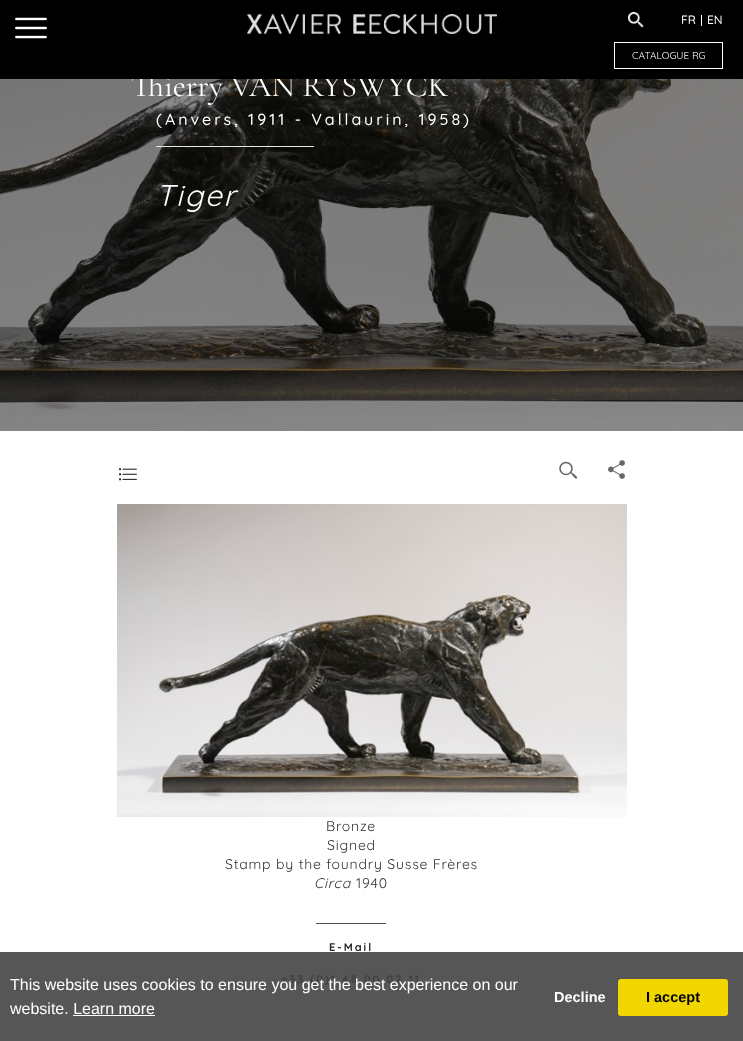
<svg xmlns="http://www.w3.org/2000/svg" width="743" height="1041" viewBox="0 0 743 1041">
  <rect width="100%" height="100%" fill="#ffffff"/>
  <rect x="0" y="952" width="743" height="89" fill="#565656"/>
  <image x="0" y="79" width="743" height="352" href="img4.png"/>
  <text x="131" y="96" font-family="Cormorant Garamond" font-size="32" font-weight="300" fill="#ffffff">Thierry VAN RYSWYCK</text>
  <rect x="0" y="0" width="743" height="79" fill="#000000"/>
  <image x="15" y="17" width="32" height="22" href="img1.png"/>
  <image x="247" y="14" width="250" height="20" href="img2.png"/>
  <image x="628" y="12" width="16" height="16" href="img3.png"/>
  <rect x="701" y="15" width="1" height="11" fill="#ffffff"/>
  <text x="681" y="24" font-family="Quicksand" font-size="12" font-weight="500" fill="#ffffff">FR</text>
  <text x="707" y="24" font-family="Quicksand" font-size="12" font-weight="500" fill="#ffffff">EN</text>
  <rect x="614.5" y="42.5" width="108" height="26" fill="none" stroke="#ffffff"/>
  <text x="632" y="59" font-family="Quicksand" font-size="10" fill="#ffffff">CATALOGUE RG</text>
  <text x="156" y="125" font-family="Quicksand" font-size="16" font-weight="500" letter-spacing="3" fill="#ffffff">(Anvers, 1911 - Vallaurin, 1958)</text>
  <rect x="156" y="146" width="158" height="1" fill="#e6e6e6"/>
  <text x="156" y="206" font-family="Quicksand" font-size="30" font-style="italic" letter-spacing="2" fill="#ffffff">Tiger</text>
  <image x="119" y="468" width="18" height="13" href="img5.png"/>
  <circle cx="566" cy="468.5" r="6" fill="none" stroke="#666666" stroke-width="1.6"/>
  <image x="608" y="460" width="17" height="19" href="img6.png"/>
  <path d="M571 472.5L573.5 475" fill="none" stroke="#666666" stroke-width="1.3" stroke-linecap="round" stroke-linejoin="round"/>
  <path d="M573.5 475L576 477.5" fill="none" stroke="#666666" stroke-width="2.3" stroke-linecap="round" stroke-linejoin="round"/>
  <image x="117" y="504" width="510" height="313" href="img7.png"/>
  <text x="326" y="831" font-family="Quicksand" font-size="14" letter-spacing="0.8" fill="#333333">Bronze</text>
  <text x="327" y="850" font-family="Quicksand" font-size="14" letter-spacing="0.8" fill="#333333">Signed</text>
  <text x="225" y="869" font-family="Quicksand" font-size="14" letter-spacing="0.8" fill="#333333">Stamp by the foundry Susse Frères</text>
  <text x="314" y="888" font-family="Quicksand" font-size="14" font-style="italic" letter-spacing="0.8" fill="#333333">Circa</text>
  <text x="356" y="888" font-family="Quicksand" font-size="14" letter-spacing="0.8" fill="#333333">1940</text>
  <rect x="316" y="923" width="70" height="1" fill="#515050"/>
  <text x="329" y="951" font-family="Quicksand" font-size="11" font-weight="bold" letter-spacing="2" fill="#212529">E-Mail</text>
  <text x="281" y="983" font-family="Quicksand" font-size="11" font-weight="bold" letter-spacing="2" fill="#404040">+33 (0)1 48 00 02 11</text>
  <text x="10" y="990" font-family="Liberation Sans" font-size="16" fill="#ffffff">This website uses cookies to ensure you get the best experience on our</text>
  <text x="10" y="1014" font-family="Liberation Sans" font-size="16" fill="#ffffff">website. Learn more</text>
  <rect x="73" y="1015" width="82" height="1" fill="#ffffff"/>
  <text x="554" y="1002" font-family="Liberation Sans" font-size="14.5" font-weight="bold" fill="#ffffff">Decline</text>
  <rect x="618" y="979" width="110" height="37" rx="3" fill="#f1d600"/>
  <text x="646" y="1002" font-family="Liberation Sans" font-size="14.5" font-weight="bold" fill="#000000">I accept</text>
</svg>
